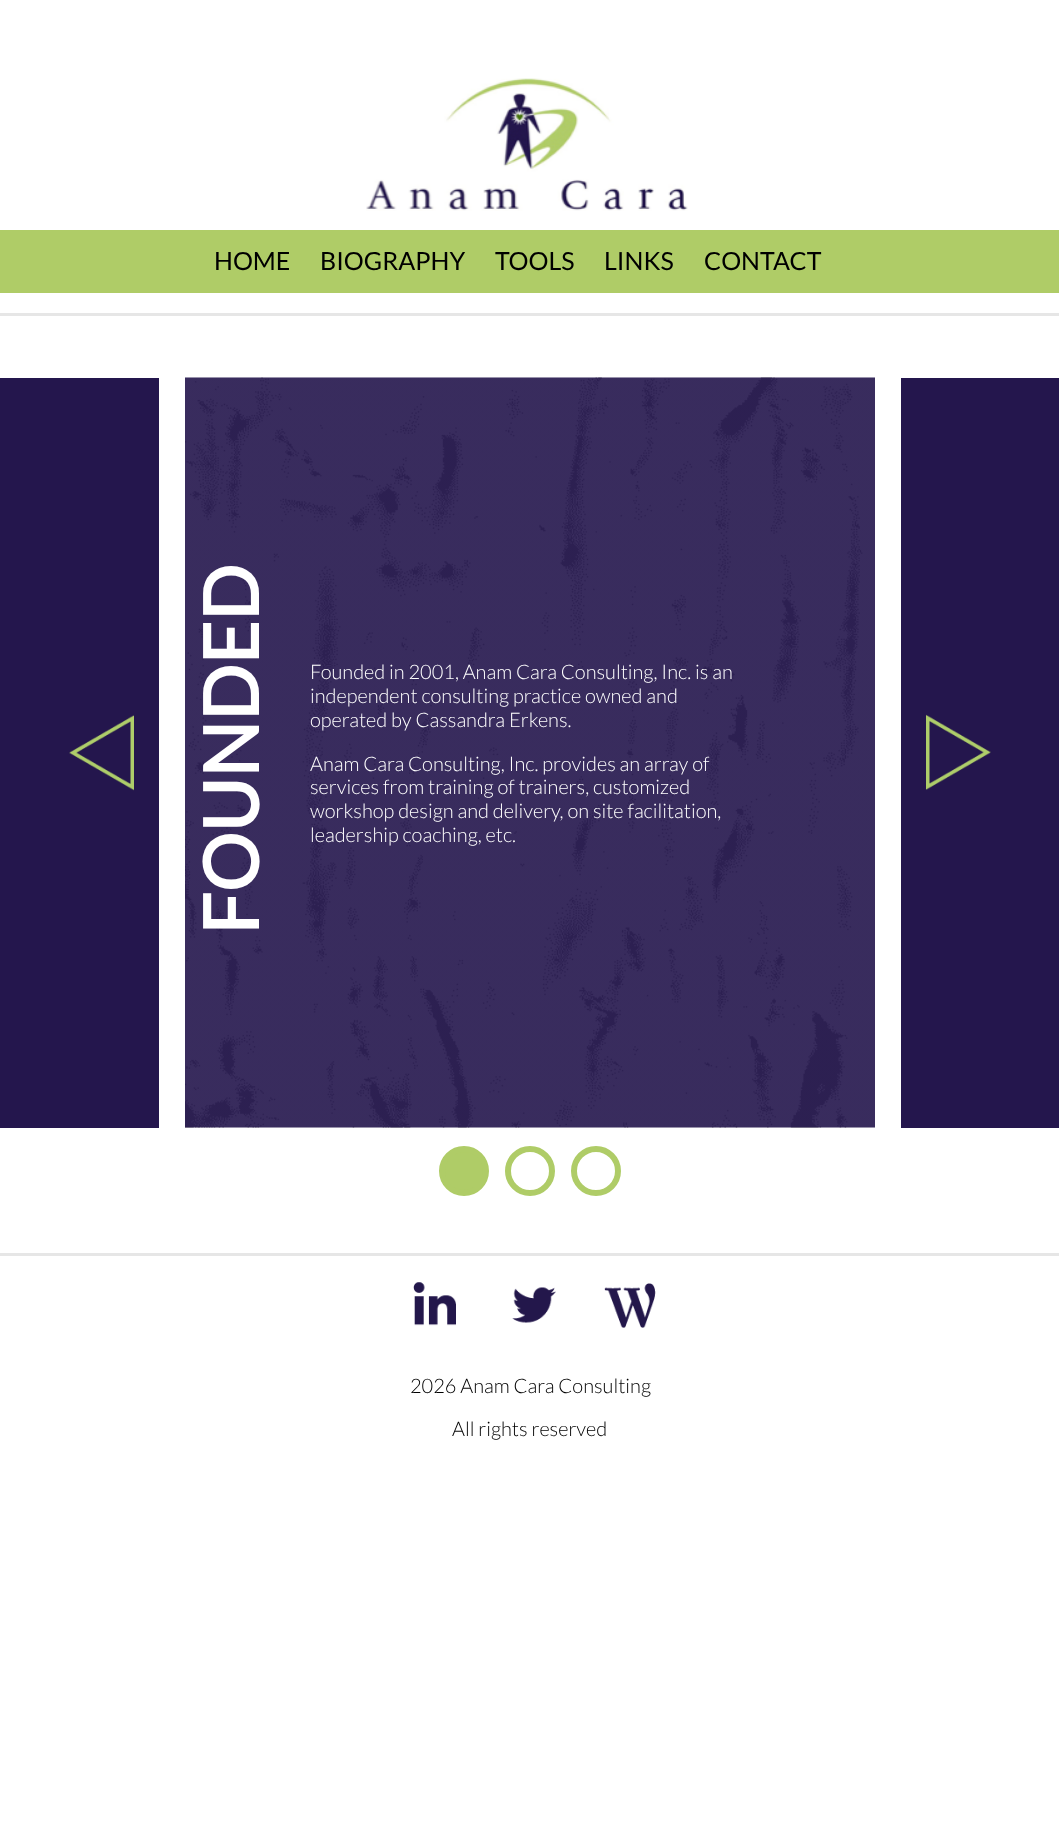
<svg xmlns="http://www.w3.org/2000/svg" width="1059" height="1843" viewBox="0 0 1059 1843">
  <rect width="100%" height="100%" fill="#ffffff"/>
  <rect x="0" y="313" width="1059" height="3" fill="#e6e6e6"/>
  <image x="366" y="78" width="322" height="133" href="img1.png"/>
  <rect x="0" y="230" width="1059" height="63" fill="#afcc67"/>
  <text x="214" y="270" font-family="Lato" font-size="25" fill="#000000">HOME</text>
  <text x="320" y="270" font-family="Lato" font-size="25" fill="#000000">BIOGRAPHY</text>
  <text x="495" y="270" font-family="Lato" font-size="25" fill="#000000">TOOLS</text>
  <text x="604" y="270" font-family="Lato" font-size="25" fill="#000000">LINKS</text>
  <text x="704" y="270" font-family="Lato" font-size="25" fill="#000000">CONTACT</text>
  <rect x="0" y="378" width="159" height="750" fill="#24164d"/>
  <image x="69" y="715" width="65" height="76" href="img2.png"/>
  <image x="185" y="377" width="690" height="751" href="img3.png"/>
  <text x="259" y="935" transform="rotate(-90 259 935)" font-family="Lato" font-size="75" font-weight="bold" fill="#ffffff">FOUNDED</text>
  <text x="310" y="679" font-family="Lato" font-size="20" font-weight="300" fill="#ffffff">Founded in 2001, Anam Cara Consulting, Inc. is an</text>
  <text x="310" y="703" font-family="Lato" font-size="20" font-weight="300" fill="#ffffff">independent consulting practice owned and</text>
  <text x="310" y="727" font-family="Lato" font-size="20" font-weight="300" fill="#ffffff">operated by Cassandra Erkens.</text>
  <text x="310" y="771" font-family="Lato" font-size="20" font-weight="300" fill="#ffffff">Anam Cara Consulting, Inc. provides an array of</text>
  <text x="310" y="794" font-family="Lato" font-size="20" font-weight="300" fill="#ffffff">services from training of trainers, customized</text>
  <text x="310" y="818" font-family="Lato" font-size="20" font-weight="300" fill="#ffffff">workshop design and delivery, on site facilitation,</text>
  <text x="310" y="842" font-family="Lato" font-size="20" font-weight="300" fill="#ffffff">leadership coaching, etc.</text>
  <rect x="901" y="378" width="158" height="750" fill="#24164d"/>
  <image x="926" y="714" width="65" height="76" href="img4.png"/>
  <circle cx="464" cy="1171" r="22" fill="#afcc67" stroke="#afcc67" stroke-width="6"/>
  <circle cx="530" cy="1171" r="22" fill="none" stroke="#afcc67" stroke-width="6"/>
  <circle cx="596" cy="1171" r="22" fill="none" stroke="#afcc67" stroke-width="6"/>
  <rect x="0" y="1253" width="1059" height="3" fill="#e6e6e6"/>
  <image x="413" y="1282" width="43" height="44" href="img5.png"/>
  <image x="512" y="1287" width="44" height="36" href="img6.png"/>
  <image x="604" y="1283" width="52" height="45" href="img7.png"/>
  <text x="410" y="1393" font-family="Lato" font-size="20" font-weight="300" fill="#000000">2026 Anam Cara Consulting</text>
  <text x="452" y="1436" font-family="Lato" font-size="20" font-weight="300" fill="#000000">All rights reserved</text>
</svg>
